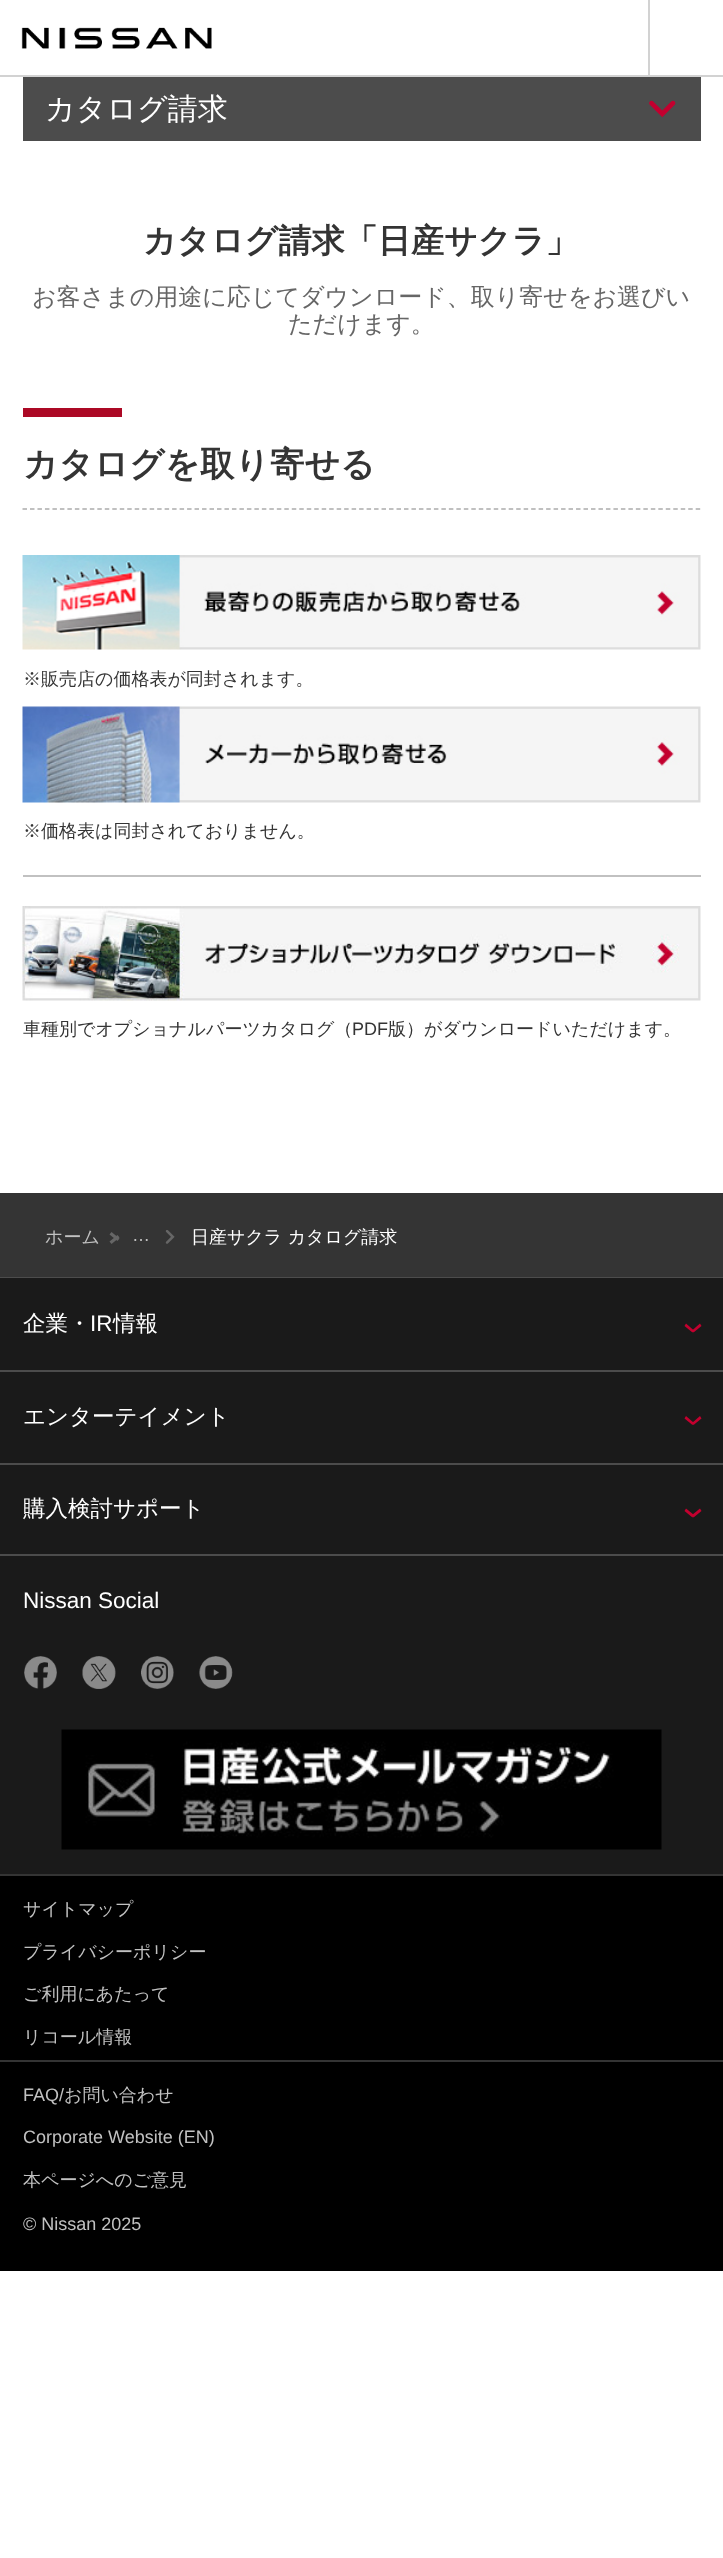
<svg xmlns="http://www.w3.org/2000/svg" width="723" height="2558" viewBox="0 0 723 2558">
  <rect width="100%" height="100%" fill="#ffffff"/>
  <rect x="0" y="75" width="723" height="2" fill="#d2d2d2"/>
  <image x="21" y="27" width="191" height="22" href="img1.png"/>
  <rect x="648" y="0" width="2" height="75" fill="#d2d2d2"/>
  <rect x="23" y="77" width="678" height="64" fill="#4c4c4c"/>
  <text x="45" y="119" font-family="WenQuanYi Zen Hei" font-size="30" font-weight="500" fill="#ffffff">カタログ請求</text>
  <image x="649" y="100" width="27" height="18" href="img2.png"/>
  <text x="143" y="252" font-family="WenQuanYi Zen Hei" font-size="33" font-weight="bold" letter-spacing="0.1" fill="#343434">カタログ請求「日産サクラ」</text>
  <text x="32" y="305" font-family="WenQuanYi Zen Hei" font-size="24" font-weight="500" fill="#666666">お客さまの用途に応じてダウンロード、取り寄せをお選びい</text>
  <text x="288" y="332" font-family="WenQuanYi Zen Hei" font-size="24" font-weight="500" fill="#666666">ただけます。</text>
  <path d="M22.5 509H700.5" fill="none" stroke="#acacac" stroke-width="1.5" stroke-dasharray="4.5 2.98"/>
  <rect x="23" y="408" width="99" height="9" fill="#ac0925"/>
  <text x="23" y="476" font-family="WenQuanYi Zen Hei" font-size="34.5" font-weight="bold" letter-spacing="0.1" fill="#343434">カタログを取り寄せる</text>
  <image x="22" y="555" width="679" height="95" href="img3.png"/>
  <text x="23" y="685" font-family="WenQuanYi Zen Hei" font-size="18" font-weight="500" fill="#343434">※販売店の価格表が同封されます。</text>
  <image x="22" y="706" width="679" height="97" href="img4.png"/>
  <text x="23" y="837" font-family="WenQuanYi Zen Hei" font-size="18" font-weight="500" fill="#343434">※価格表は同封されておりません。</text>
  <rect x="23" y="875" width="678" height="2" fill="#c1c1c1"/>
  <image x="22" y="906" width="679" height="95" href="img5.png"/>
  <text x="23" y="1035" font-family="WenQuanYi Zen Hei" font-size="18" font-weight="500" fill="#343434">車種別でオプショナルパーツカタログ（</text>
  <text x="352" y="1035" font-family="Liberation Sans" font-size="18" fill="#343434">PDF</text>
  <text x="388" y="1035" font-family="WenQuanYi Zen Hei" font-size="18" font-weight="500" fill="#343434">版）がダウンロードいただけます。</text>
  <rect x="0" y="1193" width="723" height="84" fill="#343434"/>
  <rect x="0" y="1277" width="723" height="1" fill="#4c4c4c"/>
  <text x="45" y="1243" font-family="WenQuanYi Zen Hei" font-size="18" font-weight="500" fill="#c1c1c1">ホーム</text>
  <path d="M111.5 1232L119.5 1238.5L117.5 1241L109.5 1234.5Z" fill="#666666"/>
  <path d="M109.5 1241.5L117.5 1235L119.5 1237.5L111.5 1244Z" fill="#666666"/>
  <text x="132" y="1241" font-family="Liberation Sans" font-size="18" fill="#c1c1c1">…</text>
  <image x="165" y="1230" width="10" height="14" href="img6.png"/>
  <text x="191" y="1243" font-family="WenQuanYi Zen Hei" font-size="18" font-weight="500" fill="#ffffff">日産サクラ カタログ請求</text>
  <rect x="0" y="1278" width="723" height="596" fill="#1a1a1a"/>
  <text x="23" y="1331" font-family="WenQuanYi Zen Hei" font-size="22.5" font-weight="500" fill="#ffffff">企業・</text>
  <text x="90" y="1331" font-family="Liberation Sans" font-size="22.5" fill="#ffffff">IR</text>
  <text x="113" y="1331" font-family="WenQuanYi Zen Hei" font-size="22.5" font-weight="500" fill="#ffffff">情報</text>
  <path d="M686 1323.5L694 1330.5L692.5 1332.5L684.5 1326Z" fill="#c3002f"/>
  <path d="M692 1330.5L700 1323.5L701.5 1326L693.5 1332.5Z" fill="#c3002f"/>
  <rect x="0" y="1370" width="723" height="2" fill="#4c4c4c"/>
  <text x="23" y="1424" font-family="WenQuanYi Zen Hei" font-size="22.5" font-weight="500" fill="#ffffff">エンターテイメント</text>
  <path d="M686 1416L694 1423L692.5 1425L684.5 1418.5Z" fill="#c3002f"/>
  <path d="M692 1423L700 1416L701.5 1418.5L693.5 1425Z" fill="#c3002f"/>
  <rect x="0" y="1463" width="723" height="2" fill="#4c4c4c"/>
  <text x="23" y="1516" font-family="WenQuanYi Zen Hei" font-size="22.5" font-weight="500" fill="#ffffff">購入検討サポート</text>
  <path d="M686 1508.5L694 1515L692.5 1517.5L684.5 1511Z" fill="#c3002f"/>
  <path d="M692 1515L700 1508.5L701.5 1511L693.5 1517.5Z" fill="#c3002f"/>
  <rect x="0" y="1554" width="723" height="2" fill="#4c4c4c"/>
  <text x="23" y="1608" font-family="Liberation Sans" font-size="22.5" fill="#ffffff">Nissan Social</text>
  <image x="24" y="1656" width="33" height="33" href="img7.png"/>
  <image x="82" y="1656" width="34" height="33" href="img8.png"/>
  <image x="141" y="1656" width="33" height="33" href="img9.png"/>
  <image x="199" y="1656" width="34" height="33" href="img10.png"/>
  <image x="61" y="1729" width="601" height="121" href="img11.png"/>
  <rect x="0" y="1876" width="723" height="395" fill="#000000"/>
  <rect x="0" y="1874" width="723" height="2" fill="#343434"/>
  <rect x="0" y="2060" width="723" height="2" fill="#343434"/>
  <text x="23" y="1915" font-family="WenQuanYi Zen Hei" font-size="18" font-weight="500" fill="#c1c1c1">サイトマップ</text>
  <text x="23" y="1958" font-family="WenQuanYi Zen Hei" font-size="18" font-weight="500" fill="#c1c1c1">プライバシーポリシー</text>
  <text x="23" y="2000" font-family="WenQuanYi Zen Hei" font-size="18" font-weight="500" fill="#c1c1c1">ご利用にあたって</text>
  <text x="23" y="2043" font-family="WenQuanYi Zen Hei" font-size="18" font-weight="500" fill="#c1c1c1">リコール情報</text>
  <text x="23" y="2101" font-family="Liberation Sans" font-size="18" fill="#c1c1c1">FAQ/</text>
  <text x="64" y="2101" font-family="WenQuanYi Zen Hei" font-size="18" font-weight="500" fill="#c1c1c1">お問い合わせ</text>
  <text x="23" y="2143" font-family="Liberation Sans" font-size="18" fill="#c1c1c1">Corporate Website (EN)</text>
  <text x="23" y="2186" font-family="WenQuanYi Zen Hei" font-size="18" font-weight="500" fill="#c1c1c1">本ページへのご意見</text>
  <text x="23" y="2230" font-family="Liberation Sans" font-size="18" fill="#c1c1c1">© Nissan 2025</text>
</svg>
